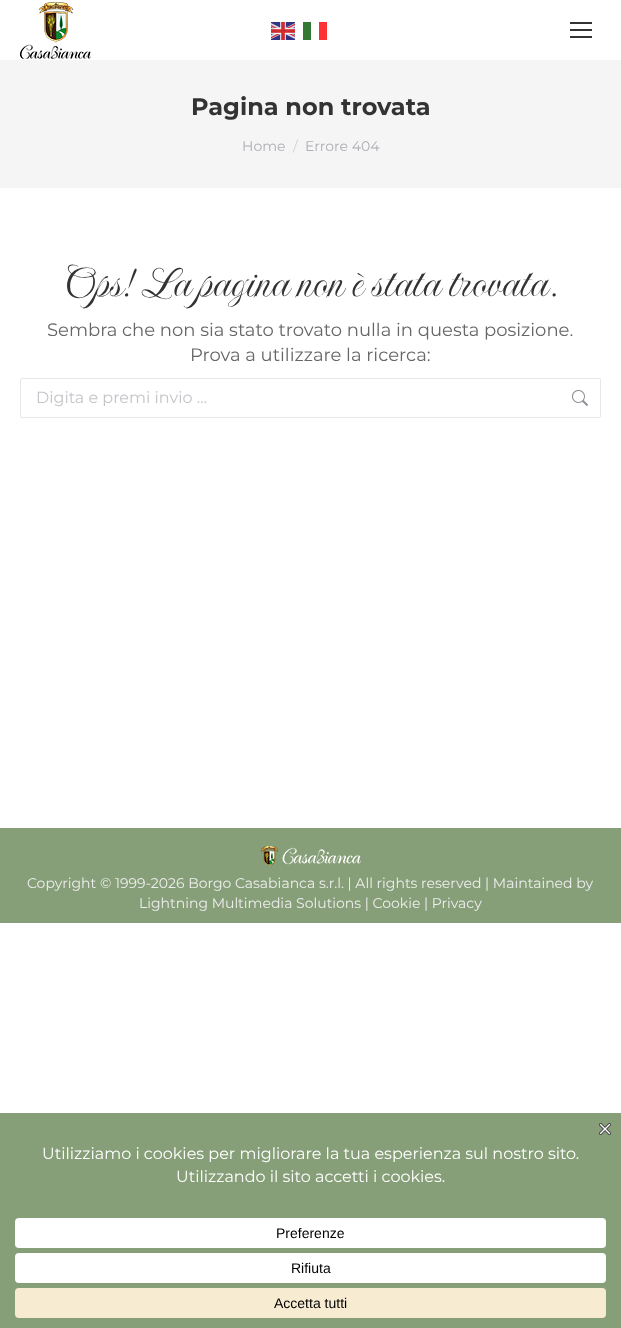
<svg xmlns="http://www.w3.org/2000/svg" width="621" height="1328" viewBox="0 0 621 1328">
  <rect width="100%" height="100%" fill="#ffffff"/>
  <image x="271" y="22" width="24" height="18" href="img1.png"/>
  <rect x="303" y="22" width="8" height="18" fill="#337933"/>
  <rect x="319" y="22" width="8" height="18" fill="#fd3333"/>
  <image x="20" y="2" width="71" height="57" href="img2.png"/>
  <rect x="570" y="22" width="22" height="2" fill="#333333"/>
  <rect x="570" y="29" width="22" height="2" fill="#333333"/>
  <rect x="570" y="36" width="22" height="2" fill="#333333"/>
  <rect x="0" y="60" width="621" height="128" fill="#f5f5f5"/>
  <text x="191" y="115" font-family="Montserrat" font-size="24" font-weight="bold" fill="#333333">Pagina non trovata</text>
  <text x="242" y="151" font-family="Montserrat" font-size="14" fill="#adafb3">Home</text>
  <text x="293" y="151" font-family="Montserrat" font-size="14" fill="#d1d2d4">/</text>
  <text x="305" y="151" font-family="Montserrat" font-size="14" fill="#adafb3">Errore 404</text>
  <text x="63" y="296" font-family="Imperial Script" font-size="48" fill="#333333">Ops! La pagina non è stata trovata.</text>
  <text x="47" y="336" font-family="Montserrat" font-size="18" fill="#666666">Sembra che non sia stato trovato nulla in questa posizione.</text>
  <text x="190" y="361" font-family="Montserrat" font-size="18" fill="#666666">Prova a utilizzare la ricerca:</text>
  <rect x="20.5" y="378.5" width="580" height="39" rx="1.5" fill="none" stroke="#e7e7e7"/>
  <text x="36" y="403" font-family="Montserrat" font-size="16" fill="#c4c5c9">Digita e premi invio …</text>
  <image x="572" y="390" width="16" height="16" href="img3.png"/>
  <rect x="0" y="828" width="621" height="95" fill="#869f78"/>
  <image x="261" y="846" width="100" height="20" href="img4.png"/>
  <text x="27" y="888" font-family="Montserrat" font-size="14" fill="#eeeeee">Copyright © 1999-2026 Borgo Casabianca s.r.l. | All rights reserved | Maintained by</text>
  <text x="139" y="908" font-family="Montserrat" font-size="14" fill="#eeeeee">Lightning Multimedia Solutions | Cookie | Privacy</text>
  <rect x="0" y="1113" width="621" height="215" fill="#869f78"/>
  <image x="599" y="1123" width="12" height="12" href="img5.png"/>
  <text x="42" y="1159" font-family="Montserrat" font-size="16" fill="#ffffff">Utilizziamo i cookies per migliorare la tua esperienza sul nostro sito.</text>
  <text x="176" y="1182" font-family="Montserrat" font-size="16" fill="#ffffff">Utilizzando il sito accetti i cookies.</text>
  <rect x="15" y="1218" width="591" height="30" rx="4" fill="#ffffff"/>
  <text x="276" y="1238" font-family="Liberation Sans" font-size="14" fill="#000000">Preferenze</text>
  <rect x="15" y="1253" width="591" height="30" rx="4" fill="#ffffff"/>
  <text x="291" y="1273" font-family="Liberation Sans" font-size="14" fill="#000000">Rifiuta</text>
  <rect x="15" y="1288" width="591" height="30" rx="4" fill="#f7ecd2"/>
  <text x="274" y="1308" font-family="Liberation Sans" font-size="14" fill="#000000">Accetta tutti</text>
</svg>
